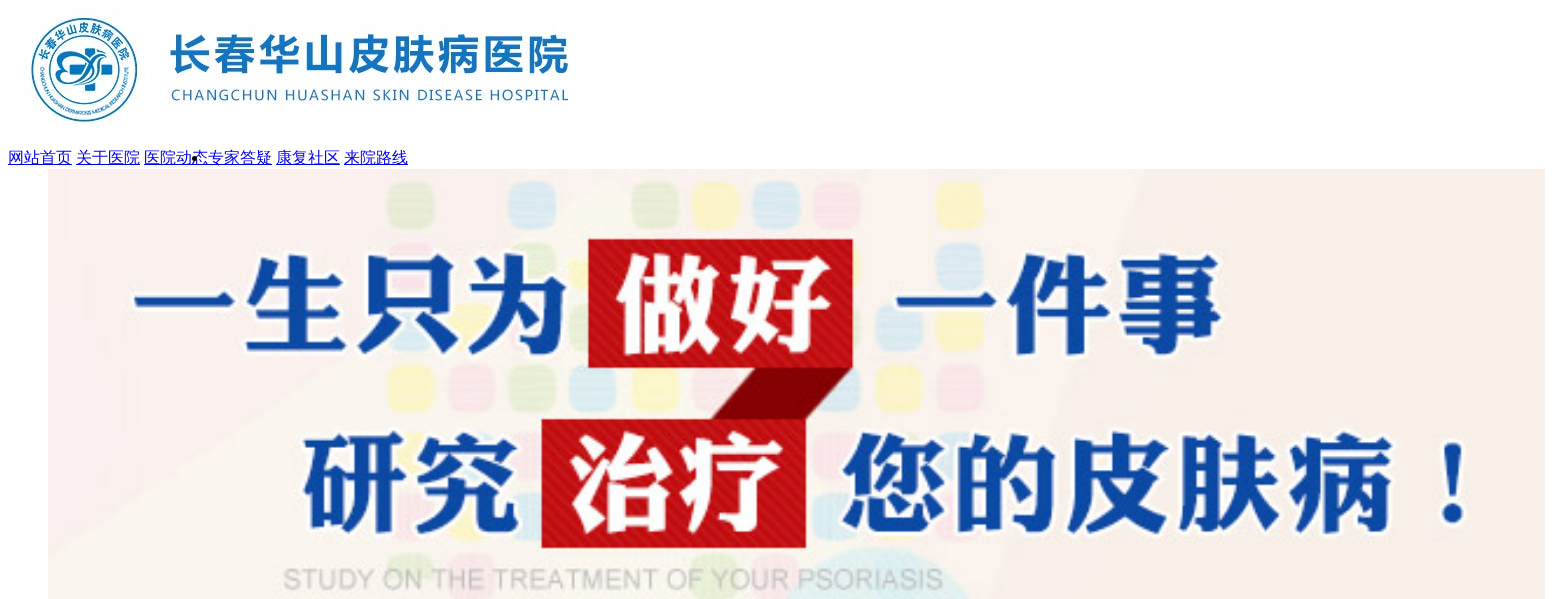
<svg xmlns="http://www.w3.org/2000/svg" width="1553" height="599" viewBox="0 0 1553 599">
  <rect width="100%" height="100%" fill="#ffffff"/>
  <image x="24" y="8" width="545" height="120" href="img1.png"/>
  <rect x="8" y="164" width="64" height="1" fill="#0000ee"/>
  <text x="8" y="163" font-family="WenQuanYi Zen Hei" font-size="16" font-weight="500" fill="#0000ee">网站首页</text>
  <rect x="76" y="164" width="64" height="1" fill="#0000ee"/>
  <text x="76" y="163" font-family="WenQuanYi Zen Hei" font-size="16" font-weight="500" fill="#0000ee">关于医院</text>
  <rect x="144" y="164" width="128" height="1" fill="#0000ee"/>
  <text x="144" y="163" font-family="WenQuanYi Zen Hei" font-size="16" font-weight="500" fill="#0000ee">医院动态专家答疑</text>
  <circle cx="194.5" cy="158.5" r="2.5" fill="#000000"/>
  <rect x="276" y="164" width="64" height="1" fill="#0000ee"/>
  <text x="276" y="163" font-family="WenQuanYi Zen Hei" font-size="16" font-weight="500" fill="#0000ee">康复社区</text>
  <rect x="344" y="164" width="64" height="1" fill="#0000ee"/>
  <text x="344" y="163" font-family="WenQuanYi Zen Hei" font-size="16" font-weight="500" fill="#0000ee">来院路线</text>
  <image x="48" y="169" width="1497" height="430" href="img2.png"/>
</svg>
